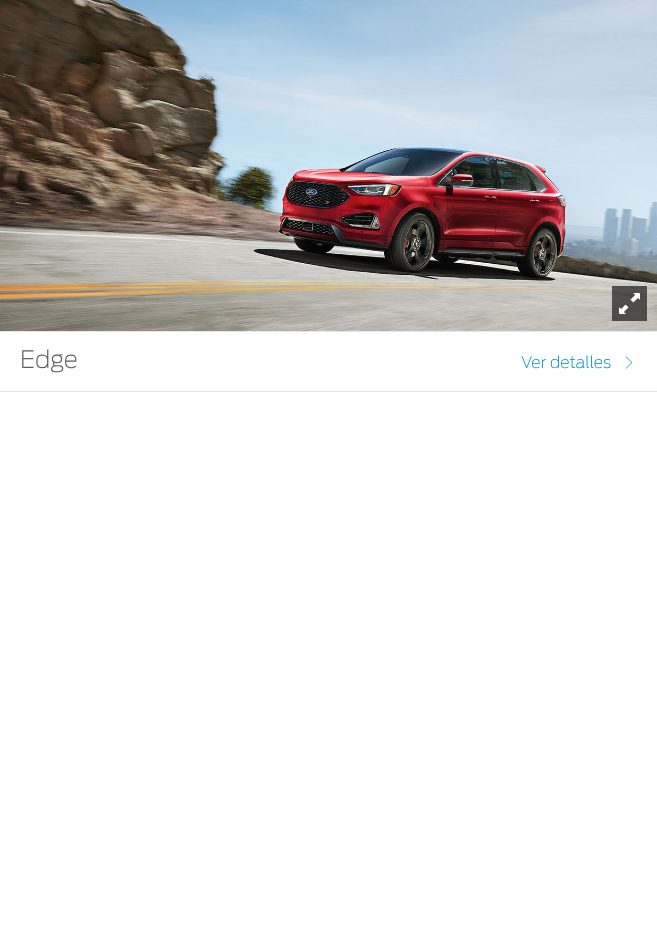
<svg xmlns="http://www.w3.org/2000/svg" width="657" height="950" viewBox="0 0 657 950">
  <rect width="100%" height="100%" fill="#ffffff"/>
  <image x="0" y="0" width="657" height="331" href="img1.png"/>
  <rect x="612" y="286" width="35" height="35" fill="#000000" fill-opacity="0.6"/>
  <image x="619" y="293" width="21" height="21" href="img2.png"/>
  <rect x="0" y="331" width="657" height="1" fill="#e7e7e7"/>
  <text x="20" y="368" font-family="'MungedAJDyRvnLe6'" font-size="24" font-weight="200" fill="#616161">Edge</text>
  <text x="521" y="368" font-family="'MungedAJDyRvnLe6'" font-size="16" font-weight="200" fill="#008cba">Ver detalles</text>
  <image x="625" y="356" width="8" height="13" href="img3.png"/>
  <rect x="0" y="391" width="657" height="1" fill="#e0e0e0"/>
</svg>
